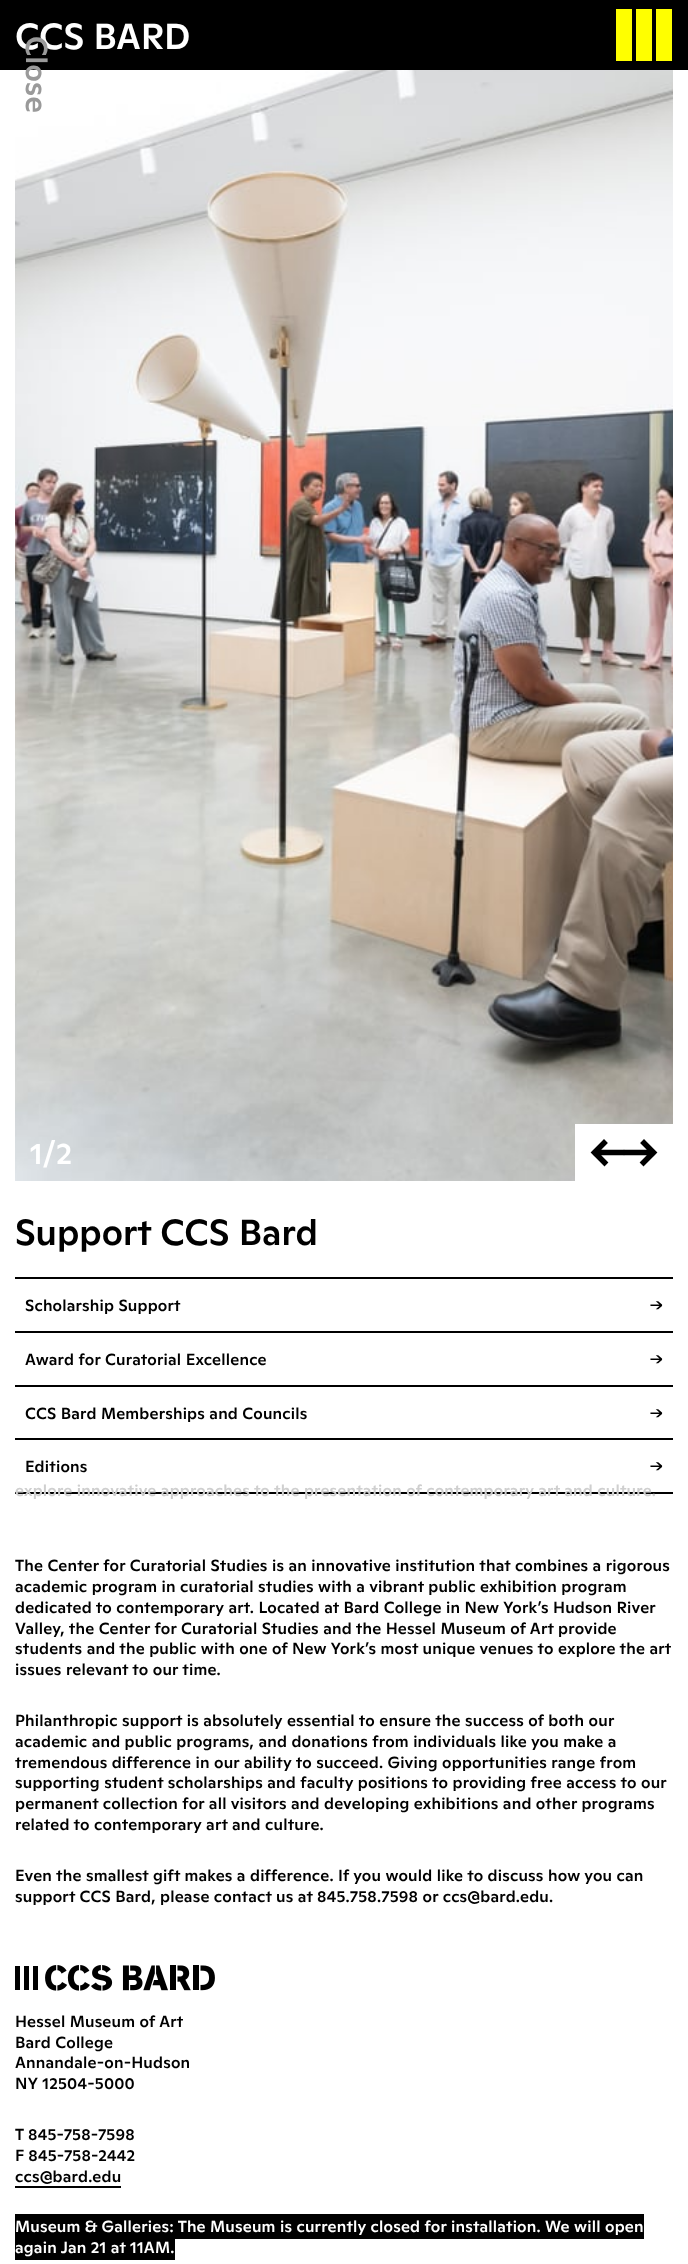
<svg xmlns="http://www.w3.org/2000/svg" width="688" height="2264" viewBox="0 0 688 2264">
  <rect width="100%" height="100%" fill="#ffffff"/>
  <rect x="0" y="0" width="688" height="70" fill="#000000"/>
  <text x="15" y="49" font-family="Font" font-size="36" font-weight="500" fill="#ffffff">CCS BARD</text>
  <image x="15" y="70" width="658" height="1111" href="img1.png"/>
  <text x="26" y="36" transform="rotate(90 26 36)" font-family="Font" font-size="30" font-weight="500" fill="#9a9a9a">Close</text>
  <rect x="616" y="9" width="16" height="52" fill="#ffff00"/>
  <rect x="636" y="9" width="16" height="52" fill="#ffff00"/>
  <rect x="656" y="9" width="16" height="52" fill="#ffff00"/>
  <text x="30" y="1164" font-family="Font" font-size="30" font-weight="500" fill="#ffffff">1∕2</text>
  <rect x="575" y="1124" width="98" height="57" fill="#ffffff"/>
  <path d="M594.5 1152.5L604 1143M595 1153L604.5 1162.5M598.5 1152.5H621.5" fill="none" stroke="#000000" stroke-width="5.5" stroke-linecap="square"/>
  <path d="M653.5 1152.5L644 1143M653 1153L643.5 1162.5M649.5 1152.5H626.5" fill="none" stroke="#000000" stroke-width="5.5" stroke-linecap="square"/>
  <text x="15" y="1245" font-family="Font" font-size="36" font-weight="500" fill="#000000">Support CCS Bard</text>
  <rect x="15" y="1277" width="658" height="2" fill="#000000"/>
  <text x="25" y="1311" font-family="Font" font-size="16" font-weight="500" letter-spacing="0.2" fill="#000000">Scholarship Support</text>
  <text x="650" y="1311" font-family="Font" font-size="16" font-weight="500" letter-spacing="0.2" fill="#000000">→</text>
  <rect x="15" y="1331" width="658" height="2" fill="#000000"/>
  <text x="25" y="1365" font-family="Font" font-size="16" font-weight="500" letter-spacing="0.2" fill="#000000">Award for Curatorial Excellence</text>
  <text x="650" y="1365" font-family="Font" font-size="16" font-weight="500" letter-spacing="0.2" fill="#000000">→</text>
  <rect x="15" y="1385" width="658" height="2" fill="#000000"/>
  <text x="25" y="1419" font-family="Font" font-size="16" font-weight="500" letter-spacing="0.2" fill="#000000">CCS Bard Memberships and Councils</text>
  <text x="650" y="1419" font-family="Font" font-size="16" font-weight="500" letter-spacing="0.2" fill="#000000">→</text>
  <rect x="15" y="1492" width="658" height="2" fill="#000000"/>
  <text x="15" y="1496" font-family="Font" font-size="16" font-weight="500" letter-spacing="0.2" fill="#cfcfcf">explore innovative approaches to the presentation of contemporary art and culture.</text>
  <rect x="15" y="1438" width="658" height="2" fill="#000000"/>
  <text x="25" y="1472" font-family="Font" font-size="16" font-weight="500" letter-spacing="0.2" fill="#000000">Editions</text>
  <text x="650" y="1472" font-family="Font" font-size="16" font-weight="500" letter-spacing="0.2" fill="#000000">→</text>
  <text x="15" y="1571" font-family="Font" font-size="16" font-weight="500" letter-spacing="0.2" fill="#000000">The Center for Curatorial Studies is an innovative institution that combines a rigorous</text>
  <text x="15" y="1592" font-family="Font" font-size="16" font-weight="500" letter-spacing="0.2" fill="#000000">academic program in curatorial studies with a vibrant public exhibition program</text>
  <text x="15" y="1613" font-family="Font" font-size="16" font-weight="500" letter-spacing="0.2" fill="#000000">dedicated to contemporary art. Located at Bard College in New York’s Hudson River</text>
  <text x="15" y="1634" font-family="Font" font-size="16" font-weight="500" letter-spacing="0.2" fill="#000000">Valley, the Center for Curatorial Studies and the Hessel Museum of Art provide</text>
  <text x="15" y="1654" font-family="Font" font-size="16" font-weight="500" letter-spacing="0.2" fill="#000000">students and the public with one of New York’s most unique venues to explore the art</text>
  <text x="15" y="1675" font-family="Font" font-size="16" font-weight="500" letter-spacing="0.2" fill="#000000">issues relevant to our time.</text>
  <text x="15" y="1726" font-family="Font" font-size="16" font-weight="500" letter-spacing="0.2" fill="#000000">Philanthropic support is absolutely essential to ensure the success of both our</text>
  <text x="15" y="1747" font-family="Font" font-size="16" font-weight="500" letter-spacing="0.2" fill="#000000">academic and public programs, and donations from individuals like you make a</text>
  <text x="15" y="1768" font-family="Font" font-size="16" font-weight="500" letter-spacing="0.2" fill="#000000">tremendous difference in our ability to succeed. Giving opportunities range from</text>
  <text x="15" y="1788" font-family="Font" font-size="16" font-weight="500" letter-spacing="0.2" fill="#000000">supporting student scholarships and faculty positions to providing free access to our</text>
  <text x="15" y="1809" font-family="Font" font-size="16" font-weight="500" letter-spacing="0.2" fill="#000000">permanent collection for all visitors and developing exhibitions and other programs</text>
  <text x="15" y="1830" font-family="Font" font-size="16" font-weight="500" letter-spacing="0.2" fill="#000000">related to contemporary art and culture.</text>
  <text x="15" y="1881" font-family="Font" font-size="16" font-weight="500" letter-spacing="0.2" fill="#000000">Even the smallest gift makes a difference. If you would like to discuss how you can</text>
  <text x="15" y="1902" font-family="Font" font-size="16" font-weight="500" letter-spacing="0.2" fill="#000000">support CCS Bard, please contact us at 845.758.7598 or ccs@bard.edu.</text>
  <image x="15" y="1965" width="200" height="26" href="img2.png"/>
  <text x="15" y="2027" font-family="Font" font-size="16" font-weight="500" letter-spacing="0.2" fill="#000000">Hessel Museum of Art</text>
  <text x="15" y="2048" font-family="Font" font-size="16" font-weight="500" letter-spacing="0.2" fill="#000000">Bard College</text>
  <text x="15" y="2068" font-family="Font" font-size="16" font-weight="500" letter-spacing="0.2" fill="#000000">Annandale-on-Hudson</text>
  <text x="15" y="2089" font-family="Font" font-size="16" font-weight="500" letter-spacing="0.2" fill="#000000">NY 12504-5000</text>
  <text x="15" y="2140" font-family="Font" font-size="16" font-weight="500" letter-spacing="0.2" fill="#000000">T 845-758-7598</text>
  <text x="15" y="2161" font-family="Font" font-size="16" font-weight="500" letter-spacing="0.2" fill="#000000">F 845-758-2442</text>
  <text x="15" y="2182" font-family="Font" font-size="16" font-weight="500" letter-spacing="0.2" fill="#000000">ccs@bard.edu</text>
  <rect x="15" y="2186" width="106" height="2" fill="#000000"/>
  <rect x="15" y="2214" width="629" height="25" fill="#000000"/>
  <text x="15" y="2232" font-family="Font" font-size="16" font-weight="500" letter-spacing="0.2" fill="#ffffff">Museum &amp; Galleries: The Museum is currently closed for installation. We will open</text>
  <rect x="15" y="2239" width="160" height="21" fill="#000000"/>
  <text x="15" y="2253" font-family="Font" font-size="16" font-weight="500" letter-spacing="0.2" fill="#ffffff">again Jan 21 at 11AM.</text>
</svg>
